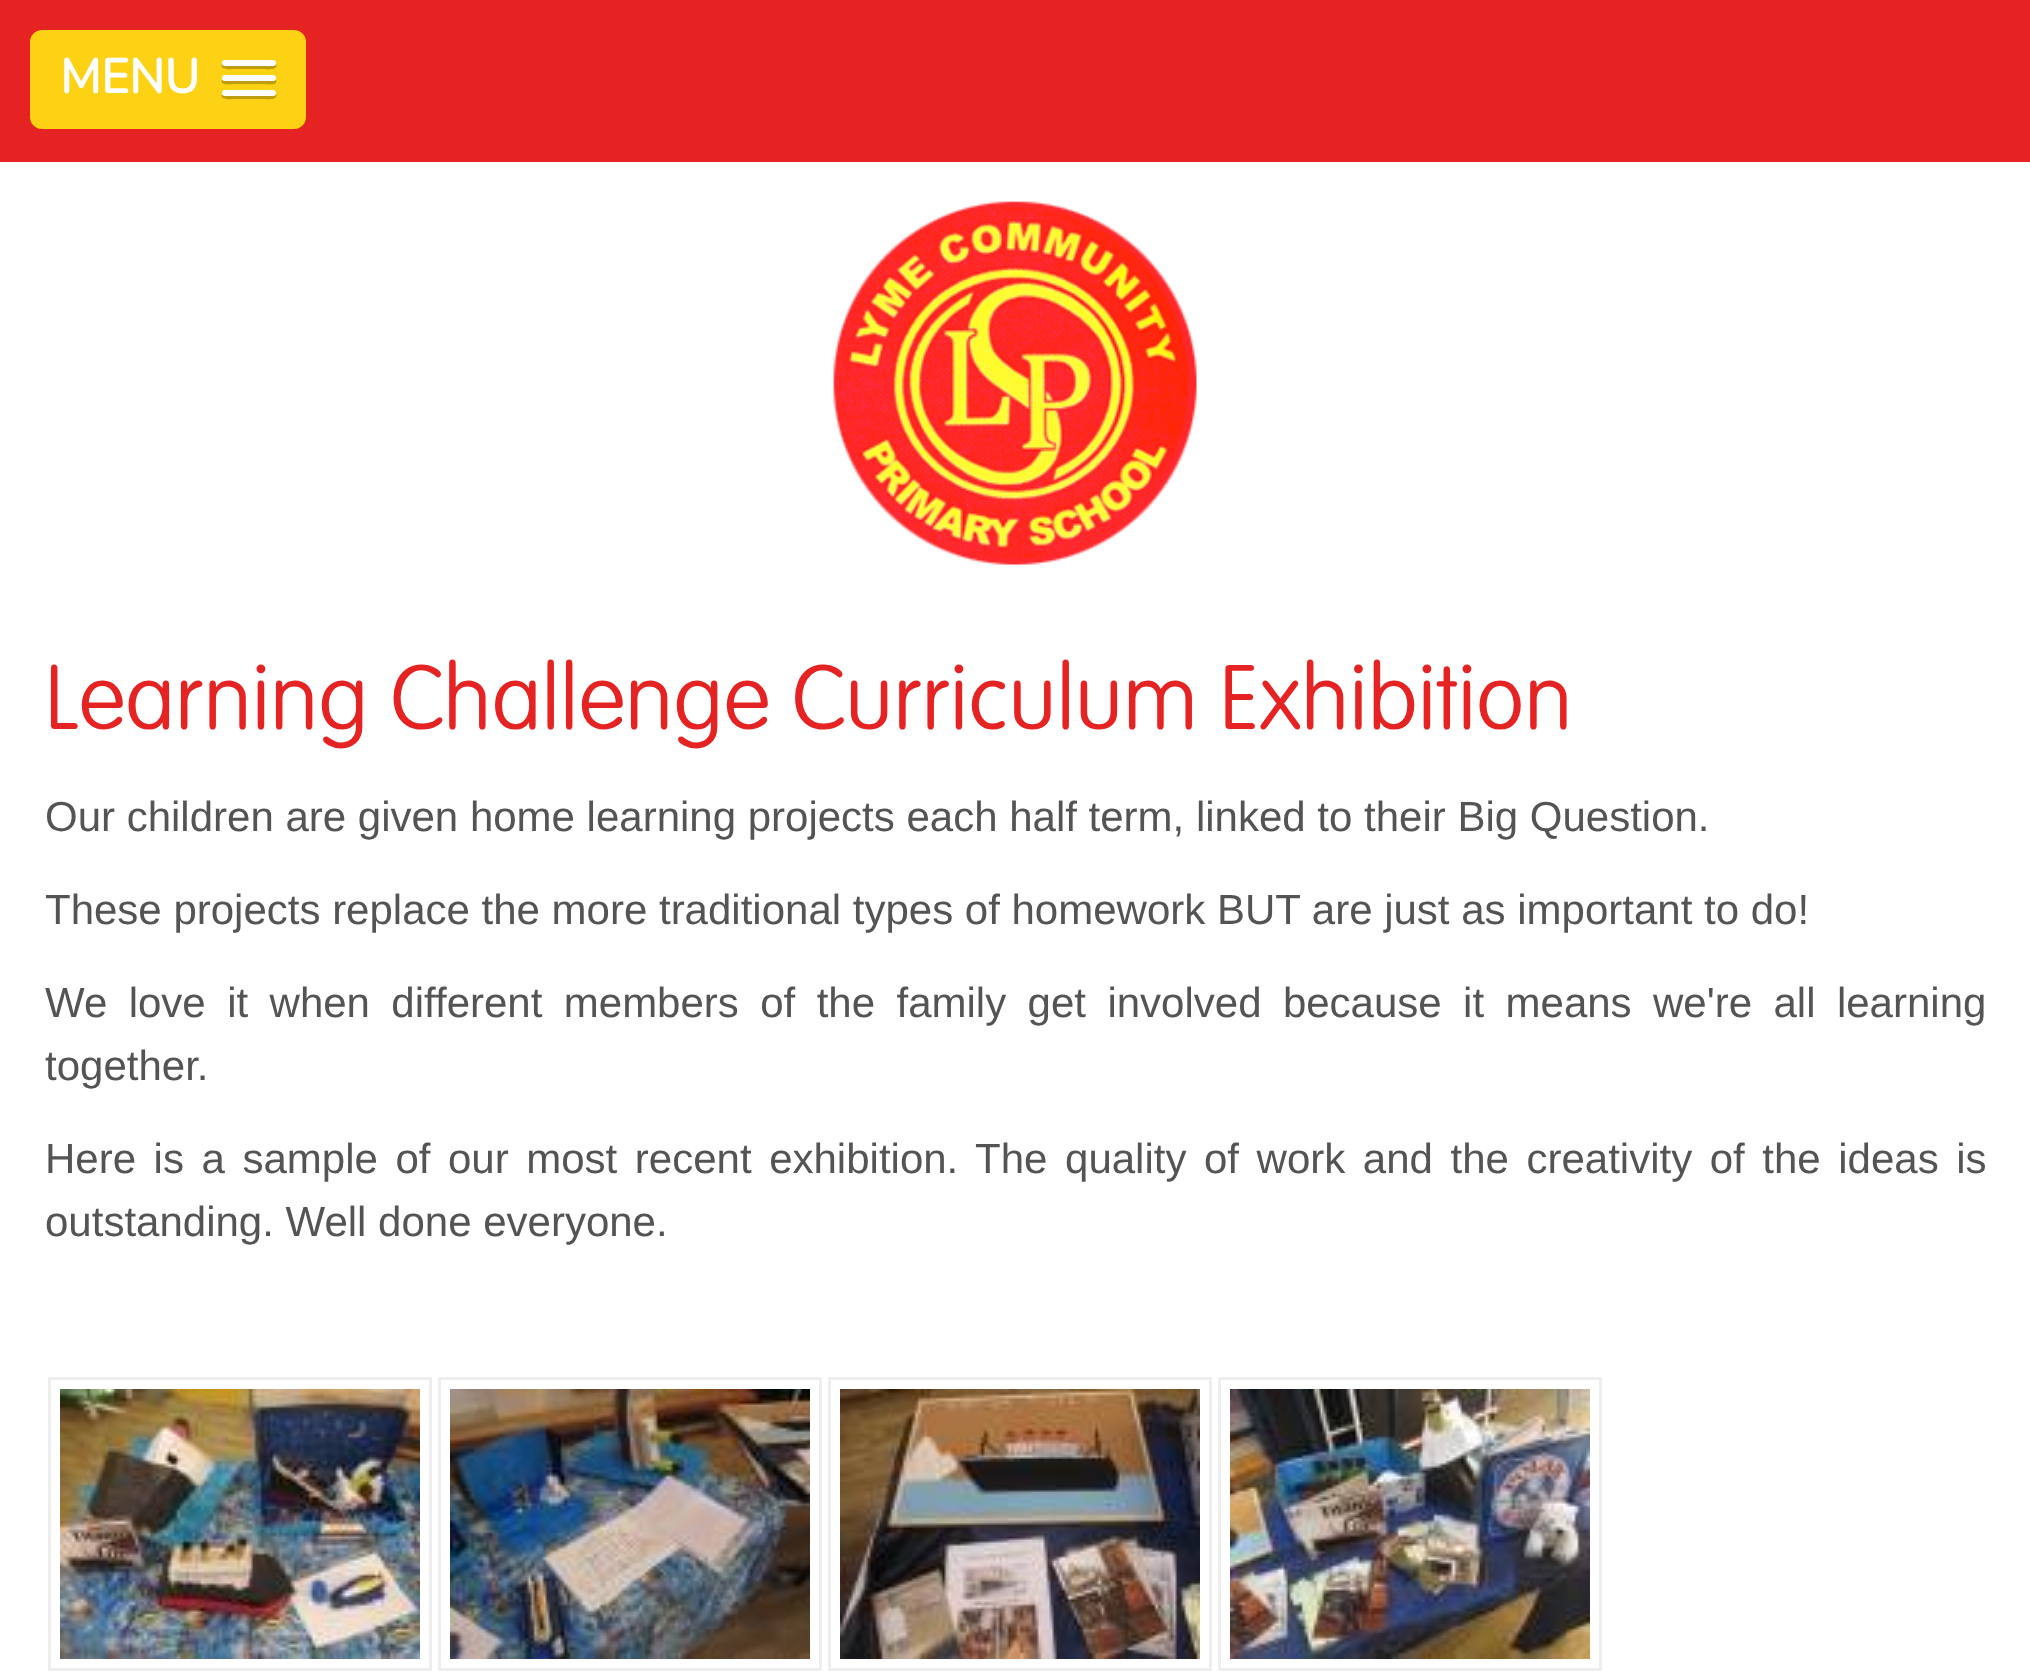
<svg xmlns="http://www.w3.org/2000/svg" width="2030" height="1672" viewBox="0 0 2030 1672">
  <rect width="100%" height="100%" fill="#ffffff"/>
  <rect x="0" y="0" width="2030" height="162" fill="#e52323"/>
  <rect x="30" y="30" width="276" height="99" rx="12" fill="#fdd114"/>
  <text x="60" y="93" font-family="Nunito" font-size="48" font-weight="bold" fill="#ffffff">MENU</text>
  <path d="M222 64C219 71 233 69 233 69H265C265 69 279 71 276 64C275 65 274 66 273 66H225C224 66 223 65 222 64Z" fill="#be9d0f"/>
  <rect x="222" y="60" width="54" height="6" rx="3" fill="#ffffff"/>
  <path d="M222 80C219 86 233 84 233 84H265C265 84 279 86 276 80C275 80 274 81 273 81H225C224 81 223 80 222 80Z" fill="#be9d0f"/>
  <rect x="222" y="75" width="54" height="6" rx="3" fill="#ffffff"/>
  <path d="M222 94C219 101 233 99 233 99H265C265 99 279 101 276 94C275 95 274 96 273 96H225C224 96 223 95 222 94Z" fill="#be9d0f"/>
  <rect x="222" y="90" width="54" height="6" rx="3" fill="#ffffff"/>
  <image x="833" y="201" width="364" height="364" href="img1.png"/>
  <text x="45" y="729" font-family="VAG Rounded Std" font-size="90" font-weight="100" fill="#e52323">Learning Challenge Curriculum Exhibition</text>
  <text x="45" y="831" font-family="Liberation Sans" font-size="42" fill="#545454">Our children are given home learning projects each half term, linked to their Big Question.</text>
  <text x="45" y="924" font-family="Liberation Sans" font-size="42" fill="#545454">These projects replace the more traditional types of homework BUT are just as important to do!</text>
  <text x="45" y="1017" word-spacing="9.75" font-family="Liberation Sans" font-size="42" fill="#545454">We love it when different members of the family get involved because it means we're all learning</text>
  <text x="45" y="1080" font-family="Liberation Sans" font-size="42" fill="#545454">together.</text>
  <text x="45" y="1173" word-spacing="5.9" font-family="Liberation Sans" font-size="42" fill="#545454">Here is a sample of our most recent exhibition. The quality of work and the creativity of the ideas is</text>
  <text x="45" y="1236" font-family="Liberation Sans" font-size="42" fill="#545454">outstanding. Well done everyone.</text>
  <rect x="49.5" y="1378.5" width="381" height="291" fill="none" stroke="#eeeeee" stroke-width="3"/>
  <image x="60" y="1389" width="360" height="270" href="img2.png"/>
  <rect x="439.5" y="1378.5" width="381" height="291" fill="none" stroke="#eeeeee" stroke-width="3"/>
  <image x="450" y="1389" width="360" height="270" href="img3.png"/>
  <rect x="829.5" y="1378.5" width="381" height="291" fill="none" stroke="#eeeeee" stroke-width="3"/>
  <image x="840" y="1389" width="360" height="270" href="img4.png"/>
  <rect x="1219.5" y="1378.5" width="381" height="291" fill="none" stroke="#eeeeee" stroke-width="3"/>
  <image x="1230" y="1389" width="360" height="270" href="img5.png"/>
</svg>
